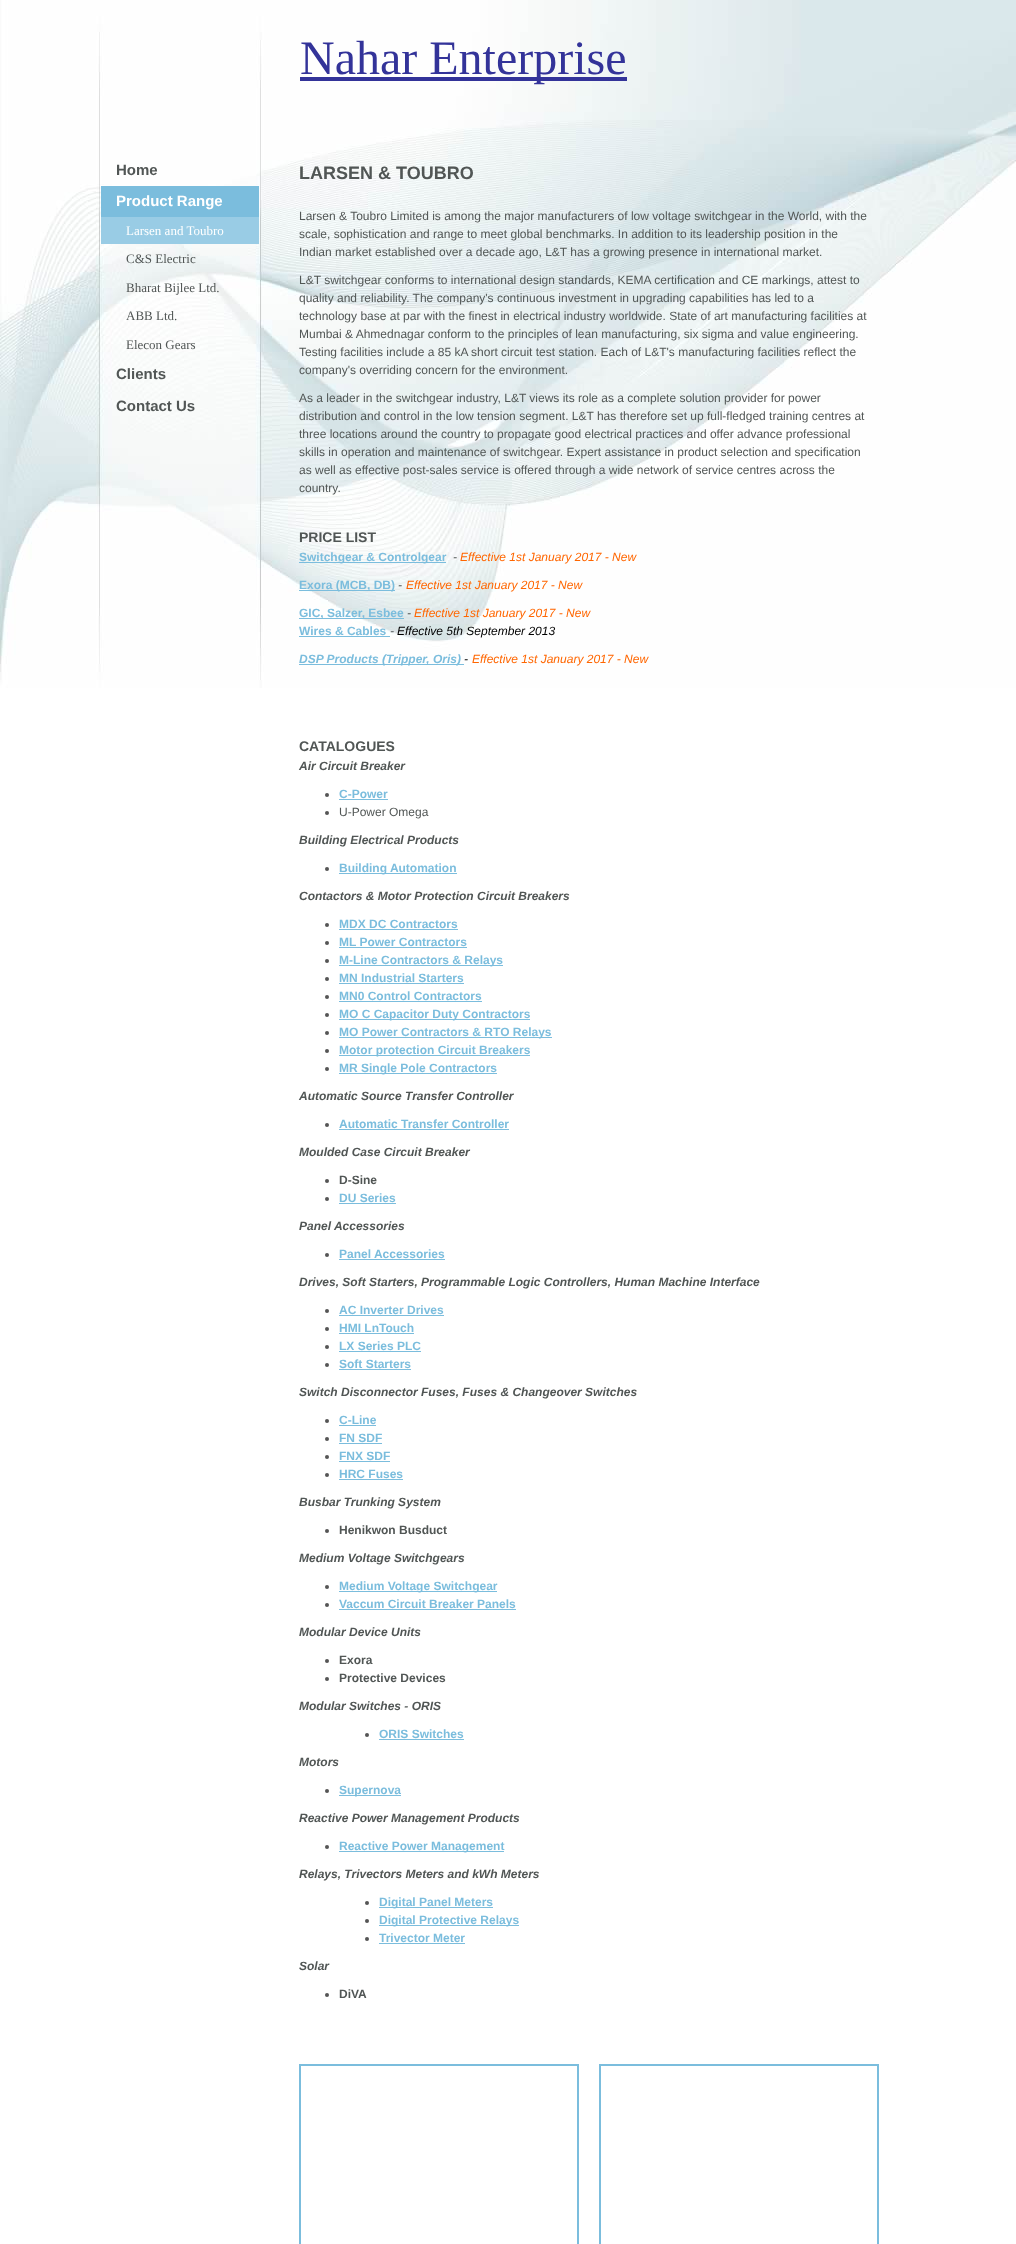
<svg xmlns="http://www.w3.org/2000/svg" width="1016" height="2244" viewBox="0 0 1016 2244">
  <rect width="100%" height="100%" fill="#ffffff"/>
  <image x="0" y="0" width="1016" height="688" href="img1.png"/>
  <rect x="300" y="77" width="327" height="4" fill="#333399"/>
  <text x="300" y="74" font-family="Liberation Serif" font-size="48" fill="#333399">Nahar Enterprise</text>
  <text x="116" y="175" font-family="Liberation Sans" font-size="15" font-weight="bold" fill="#515655">Home</text>
  <rect x="101" y="186" width="158" height="31" fill="#7bbddd"/>
  <text x="116" y="206" font-family="Liberation Sans" font-size="15" font-weight="bold" fill="#ffffff">Product Range</text>
  <rect x="101" y="217" width="158" height="27" fill="#99cce5"/>
  <text x="126" y="235" font-family="Liberation Serif" font-size="13" fill="#ffffff">Larsen and Toubro</text>
  <text x="126" y="263" font-family="Liberation Serif" font-size="13" fill="#515655">C&amp;S Electric</text>
  <text x="126" y="292" font-family="Liberation Serif" font-size="13" fill="#515655">Bharat Bijlee Ltd.</text>
  <text x="126" y="320" font-family="Liberation Serif" font-size="13" fill="#515655">ABB Ltd.</text>
  <text x="126" y="349" font-family="Liberation Serif" font-size="13" fill="#515655">Elecon Gears</text>
  <text x="116" y="379" font-family="Liberation Sans" font-size="15" font-weight="bold" fill="#515655">Clients</text>
  <text x="116" y="411" font-family="Liberation Sans" font-size="15" font-weight="bold" fill="#515655">Contact Us</text>
  <text x="299" y="179" font-family="Liberation Sans" font-size="18" font-weight="bold" fill="#515655">LARSEN &amp; TOUBRO</text>
  <text x="299" y="220" font-family="Liberation Sans" font-size="12" fill="#515655">Larsen &amp; Toubro Limited is among the major manufacturers of low voltage switchgear in the World, with the</text>
  <text x="299" y="238" font-family="Liberation Sans" font-size="12" fill="#515655">scale, sophistication and range to meet global benchmarks. In addition to its leadership position in the</text>
  <text x="299" y="256" font-family="Liberation Sans" font-size="12" fill="#515655">Indian market established over a decade ago, L&amp;T has a growing presence in international market.</text>
  <text x="299" y="284" font-family="Liberation Sans" font-size="12" fill="#515655">L&amp;T switchgear conforms to international design standards, KEMA certification and CE markings, attest to</text>
  <text x="299" y="302" font-family="Liberation Sans" font-size="12" fill="#515655">quality and reliability. The company's continuous investment in upgrading capabilities has led to a</text>
  <text x="299" y="320" font-family="Liberation Sans" font-size="12" fill="#515655">technology base at par with the finest in electrical industry worldwide. State of art manufacturing facilities at</text>
  <text x="299" y="338" font-family="Liberation Sans" font-size="12" fill="#515655">Mumbai &amp; Ahmednagar conform to the principles of lean manufacturing, six sigma and value engineering.</text>
  <text x="299" y="356" font-family="Liberation Sans" font-size="12" fill="#515655">Testing facilities include a 85 kA short circuit test station. Each of L&amp;T's manufacturing facilities reflect the</text>
  <text x="299" y="374" font-family="Liberation Sans" font-size="12" fill="#515655">company's overriding concern for the environment.</text>
  <text x="299" y="402" font-family="Liberation Sans" font-size="12" fill="#515655">As a leader in the switchgear industry, L&amp;T views its role as a complete solution provider for power</text>
  <text x="299" y="420" font-family="Liberation Sans" font-size="12" fill="#515655">distribution and control in the low tension segment. L&amp;T has therefore set up full-fledged training centres at</text>
  <text x="299" y="438" font-family="Liberation Sans" font-size="12" fill="#515655">three locations around the country to propagate good electrical practices and offer advance professional</text>
  <text x="299" y="456" font-family="Liberation Sans" font-size="12" fill="#515655">skills in operation and maintenance of switchgear. Expert assistance in product selection and specification</text>
  <text x="299" y="474" font-family="Liberation Sans" font-size="12" fill="#515655">as well as effective post-sales service is offered through a wide network of service centres across the</text>
  <text x="299" y="492" font-family="Liberation Sans" font-size="12" fill="#515655">country.</text>
  <text x="299" y="542" font-family="Liberation Sans" font-size="14" font-weight="bold" fill="#515655">PRICE LIST</text>
  <rect x="299" y="562" width="147" height="1" fill="#7bbddd"/>
  <text x="299" y="561" font-family="Liberation Sans" font-size="12" font-weight="bold" fill="#7bbddd">Switchgear &amp; Controlgear</text>
  <text x="453" y="561" font-family="Liberation Sans" font-size="12" font-style="italic" fill="#515655">-</text>
  <text x="460" y="561" font-family="Liberation Sans" font-size="12" font-style="italic" fill="#ff6600">Effective 1st January 2017 - New</text>
  <rect x="299" y="590" width="96" height="1" fill="#7bbddd"/>
  <text x="299" y="589" font-family="Liberation Sans" font-size="12" font-weight="bold" fill="#7bbddd">Exora (MCB, DB)</text>
  <text x="398" y="589" font-family="Liberation Sans" font-size="12" font-style="italic" fill="#515655">-</text>
  <text x="406" y="589" font-family="Liberation Sans" font-size="12" font-style="italic" fill="#ff6600">Effective 1st January 2017 - New</text>
  <rect x="299" y="618" width="105" height="1" fill="#7bbddd"/>
  <text x="299" y="617" font-family="Liberation Sans" font-size="12" font-weight="bold" fill="#7bbddd">GIC, Salzer, Esbee</text>
  <text x="407" y="617" font-family="Liberation Sans" font-size="12" font-style="italic" fill="#515655">-</text>
  <text x="414" y="617" font-family="Liberation Sans" font-size="12" font-style="italic" fill="#ff6600">Effective 1st January 2017 - New</text>
  <text x="299" y="635" font-family="Liberation Sans" font-size="12" font-weight="bold" fill="#7bbddd">Wires &amp; Cables</text>
  <rect x="299" y="636" width="91" height="1" fill="#7bbddd"/>
  <text x="390" y="635" font-family="Liberation Sans" font-size="12" font-style="italic" fill="#515655">-</text>
  <text x="397" y="635" font-family="Liberation Sans" font-size="12" font-style="italic" fill="#000000">Effective 5th September 2013</text>
  <rect x="299" y="664" width="165" height="1" fill="#7bbddd"/>
  <text x="299" y="663" font-family="Liberation Sans" font-size="12" font-weight="bold" font-style="italic" fill="#7bbddd">DSP Products (Tripper, Oris) </text>
  <text x="464" y="663" font-family="Liberation Sans" font-size="12" font-style="italic" fill="#000000">-</text>
  <text x="472" y="663" font-family="Liberation Sans" font-size="12" font-style="italic" fill="#ff6600">Effective 1st January 2017 - New</text>
  <text x="299" y="751" font-family="Liberation Sans" font-size="14" font-weight="bold" fill="#515655">CATALOGUES</text>
  <text x="299" y="770" font-family="Liberation Sans" font-size="12" font-weight="bold" font-style="italic" fill="#515655">Air Circuit Breaker</text>
  <circle cx="327" cy="795" r="2" fill="#555555"/>
  <text x="339" y="798" font-family="Liberation Sans" font-size="12" font-weight="bold" fill="#7bbddd">C-Power</text>
  <rect x="339" y="799" width="49" height="1" fill="#7bbddd"/>
  <circle cx="327" cy="813" r="2" fill="#555555"/>
  <text x="339" y="816" font-family="Liberation Sans" font-size="12" fill="#515655">U-Power Omega</text>
  <text x="299" y="844" font-family="Liberation Sans" font-size="12" font-weight="bold" font-style="italic" fill="#515655">Building Electrical Products</text>
  <circle cx="327" cy="869" r="2" fill="#555555"/>
  <rect x="339" y="873" width="118" height="1" fill="#7bbddd"/>
  <text x="339" y="872" font-family="Liberation Sans" font-size="12" font-weight="bold" fill="#7bbddd">Building Automation</text>
  <text x="299" y="900" font-family="Liberation Sans" font-size="12" font-weight="bold" font-style="italic" fill="#515655">Contactors &amp; Motor Protection Circuit Breakers</text>
  <circle cx="327" cy="925" r="2" fill="#555555"/>
  <text x="339" y="928" font-family="Liberation Sans" font-size="12" font-weight="bold" fill="#7bbddd">MDX DC Contractors</text>
  <rect x="339" y="929" width="119" height="1" fill="#7bbddd"/>
  <circle cx="327" cy="943" r="2" fill="#555555"/>
  <text x="339" y="946" font-family="Liberation Sans" font-size="12" font-weight="bold" fill="#7bbddd">ML Power Contractors</text>
  <rect x="339" y="947" width="128" height="1" fill="#7bbddd"/>
  <circle cx="327" cy="961" r="2" fill="#555555"/>
  <rect x="339" y="965" width="164" height="1" fill="#7bbddd"/>
  <text x="339" y="964" font-family="Liberation Sans" font-size="12" font-weight="bold" fill="#7bbddd">M-Line Contractors &amp; Relays</text>
  <circle cx="327" cy="979" r="2" fill="#555555"/>
  <text x="339" y="982" font-family="Liberation Sans" font-size="12" font-weight="bold" fill="#7bbddd">MN Industrial Starters</text>
  <rect x="339" y="983" width="125" height="1" fill="#7bbddd"/>
  <circle cx="327" cy="997" r="2" fill="#555555"/>
  <text x="339" y="1000" font-family="Liberation Sans" font-size="12" font-weight="bold" fill="#7bbddd">MN0 Control Contractors</text>
  <rect x="339" y="1001" width="143" height="1" fill="#7bbddd"/>
  <circle cx="327" cy="1015" r="2" fill="#555555"/>
  <rect x="339" y="1019" width="191" height="1" fill="#7bbddd"/>
  <text x="339" y="1018" font-family="Liberation Sans" font-size="12" font-weight="bold" fill="#7bbddd">MO C Capacitor Duty Contractors</text>
  <circle cx="327" cy="1033" r="2" fill="#555555"/>
  <rect x="339" y="1037" width="213" height="1" fill="#7bbddd"/>
  <text x="339" y="1036" font-family="Liberation Sans" font-size="12" font-weight="bold" fill="#7bbddd">MO Power Contractors &amp; RTO Relays</text>
  <circle cx="327" cy="1051" r="2" fill="#555555"/>
  <rect x="339" y="1055" width="191" height="1" fill="#7bbddd"/>
  <text x="339" y="1054" font-family="Liberation Sans" font-size="12" font-weight="bold" fill="#7bbddd">Motor protection Circuit Breakers</text>
  <circle cx="327" cy="1069" r="2" fill="#555555"/>
  <rect x="339" y="1073" width="158" height="1" fill="#7bbddd"/>
  <text x="339" y="1072" font-family="Liberation Sans" font-size="12" font-weight="bold" fill="#7bbddd">MR Single Pole Contractors</text>
  <text x="299" y="1100" font-family="Liberation Sans" font-size="12" font-weight="bold" font-style="italic" fill="#515655">Automatic Source Transfer Controller</text>
  <circle cx="327" cy="1125" r="2" fill="#555555"/>
  <text x="339" y="1128" font-family="Liberation Sans" font-size="12" font-weight="bold" fill="#7bbddd">Automatic Transfer Controller</text>
  <rect x="339" y="1129" width="170" height="1" fill="#7bbddd"/>
  <text x="299" y="1156" font-family="Liberation Sans" font-size="12" font-weight="bold" font-style="italic" fill="#515655">Moulded Case Circuit Breaker</text>
  <circle cx="327" cy="1181" r="2" fill="#555555"/>
  <text x="339" y="1184" font-family="Liberation Sans" font-size="12" font-weight="bold" fill="#515655">D-Sine</text>
  <circle cx="327" cy="1199" r="2" fill="#555555"/>
  <text x="339" y="1202" font-family="Liberation Sans" font-size="12" font-weight="bold" fill="#7bbddd">DU Series</text>
  <rect x="339" y="1203" width="57" height="1" fill="#7bbddd"/>
  <text x="299" y="1230" font-family="Liberation Sans" font-size="12" font-weight="bold" font-style="italic" fill="#515655">Panel Accessories</text>
  <circle cx="327" cy="1255" r="2" fill="#555555"/>
  <text x="339" y="1258" font-family="Liberation Sans" font-size="12" font-weight="bold" fill="#7bbddd">Panel Accessories</text>
  <rect x="339" y="1259" width="106" height="1" fill="#7bbddd"/>
  <text x="299" y="1286" font-family="Liberation Sans" font-size="12" font-weight="bold" font-style="italic" fill="#515655">Drives, Soft Starters, Programmable Logic Controllers, Human Machine Interface</text>
  <circle cx="327" cy="1311" r="2" fill="#555555"/>
  <text x="339" y="1314" font-family="Liberation Sans" font-size="12" font-weight="bold" fill="#7bbddd">AC Inverter Drives</text>
  <rect x="339" y="1315" width="105" height="1" fill="#7bbddd"/>
  <circle cx="327" cy="1329" r="2" fill="#555555"/>
  <text x="339" y="1332" font-family="Liberation Sans" font-size="12" font-weight="bold" fill="#7bbddd">HMI LnTouch</text>
  <rect x="339" y="1333" width="75" height="1" fill="#7bbddd"/>
  <circle cx="327" cy="1347" r="2" fill="#555555"/>
  <text x="339" y="1350" font-family="Liberation Sans" font-size="12" font-weight="bold" fill="#7bbddd">LX Series PLC</text>
  <rect x="339" y="1351" width="82" height="1" fill="#7bbddd"/>
  <circle cx="327" cy="1365" r="2" fill="#555555"/>
  <text x="339" y="1368" font-family="Liberation Sans" font-size="12" font-weight="bold" fill="#7bbddd">Soft Starters</text>
  <rect x="339" y="1369" width="72" height="1" fill="#7bbddd"/>
  <text x="299" y="1396" font-family="Liberation Sans" font-size="12" font-weight="bold" font-style="italic" fill="#515655">Switch Disconnector Fuses, Fuses &amp; Changeover Switches</text>
  <circle cx="327" cy="1421" r="2" fill="#555555"/>
  <text x="339" y="1424" font-family="Liberation Sans" font-size="12" font-weight="bold" fill="#7bbddd">C-Line</text>
  <rect x="339" y="1425" width="37" height="1" fill="#7bbddd"/>
  <circle cx="327" cy="1439" r="2" fill="#555555"/>
  <text x="339" y="1442" font-family="Liberation Sans" font-size="12" font-weight="bold" fill="#7bbddd">FN SDF</text>
  <rect x="339" y="1443" width="43" height="1" fill="#7bbddd"/>
  <circle cx="327" cy="1457" r="2" fill="#555555"/>
  <text x="339" y="1460" font-family="Liberation Sans" font-size="12" font-weight="bold" fill="#7bbddd">FNX SDF</text>
  <rect x="339" y="1461" width="51" height="1" fill="#7bbddd"/>
  <circle cx="327" cy="1475" r="2" fill="#555555"/>
  <text x="339" y="1478" font-family="Liberation Sans" font-size="12" font-weight="bold" fill="#7bbddd">HRC Fuses</text>
  <rect x="339" y="1479" width="64" height="1" fill="#7bbddd"/>
  <text x="299" y="1506" font-family="Liberation Sans" font-size="12" font-weight="bold" font-style="italic" fill="#515655">Busbar Trunking System</text>
  <circle cx="327" cy="1531" r="2" fill="#555555"/>
  <text x="339" y="1534" font-family="Liberation Sans" font-size="12" font-weight="bold" fill="#515655">Henikwon Busduct</text>
  <text x="299" y="1562" font-family="Liberation Sans" font-size="12" font-weight="bold" font-style="italic" fill="#515655">Medium Voltage Switchgears</text>
  <circle cx="327" cy="1587" r="2" fill="#555555"/>
  <rect x="339" y="1591" width="158" height="1" fill="#7bbddd"/>
  <text x="339" y="1590" font-family="Liberation Sans" font-size="12" font-weight="bold" fill="#7bbddd">Medium Voltage Switchgear</text>
  <circle cx="327" cy="1605" r="2" fill="#555555"/>
  <text x="339" y="1608" font-family="Liberation Sans" font-size="12" font-weight="bold" fill="#7bbddd">Vaccum Circuit Breaker Panels</text>
  <rect x="339" y="1609" width="177" height="1" fill="#7bbddd"/>
  <text x="299" y="1636" font-family="Liberation Sans" font-size="12" font-weight="bold" font-style="italic" fill="#515655">Modular Device Units</text>
  <circle cx="327" cy="1661" r="2" fill="#555555"/>
  <text x="339" y="1664" font-family="Liberation Sans" font-size="12" font-weight="bold" fill="#515655">Exora</text>
  <circle cx="327" cy="1679" r="2" fill="#555555"/>
  <text x="339" y="1682" font-family="Liberation Sans" font-size="12" font-weight="bold" fill="#515655">Protective Devices</text>
  <text x="299" y="1710" font-family="Liberation Sans" font-size="12" font-weight="bold" font-style="italic" fill="#515655">Modular Switches - ORIS</text>
  <circle cx="367" cy="1735" r="2" fill="#555555"/>
  <text x="379" y="1738" font-family="Liberation Sans" font-size="12" font-weight="bold" fill="#7bbddd">ORIS Switches</text>
  <rect x="379" y="1739" width="85" height="1" fill="#7bbddd"/>
  <text x="299" y="1766" font-family="Liberation Sans" font-size="12" font-weight="bold" font-style="italic" fill="#515655">Motors</text>
  <circle cx="327" cy="1791" r="2" fill="#555555"/>
  <rect x="339" y="1795" width="62" height="1" fill="#7bbddd"/>
  <text x="339" y="1794" font-family="Liberation Sans" font-size="12" font-weight="bold" fill="#7bbddd">Supernova</text>
  <text x="299" y="1822" font-family="Liberation Sans" font-size="12" font-weight="bold" font-style="italic" fill="#515655">Reactive Power Management Products</text>
  <circle cx="327" cy="1847" r="2" fill="#555555"/>
  <rect x="339" y="1851" width="165" height="1" fill="#7bbddd"/>
  <text x="339" y="1850" font-family="Liberation Sans" font-size="12" font-weight="bold" fill="#7bbddd">Reactive Power Management</text>
  <text x="299" y="1878" font-family="Liberation Sans" font-size="12" font-weight="bold" font-style="italic" fill="#515655">Relays, Trivectors Meters and kWh Meters</text>
  <circle cx="367" cy="1903" r="2" fill="#555555"/>
  <rect x="379" y="1907" width="114" height="1" fill="#7bbddd"/>
  <text x="379" y="1906" font-family="Liberation Sans" font-size="12" font-weight="bold" fill="#7bbddd">Digital Panel Meters</text>
  <circle cx="367" cy="1921" r="2" fill="#555555"/>
  <rect x="379" y="1925" width="140" height="1" fill="#7bbddd"/>
  <text x="379" y="1924" font-family="Liberation Sans" font-size="12" font-weight="bold" fill="#7bbddd">Digital Protective Relays</text>
  <circle cx="367" cy="1939" r="2" fill="#555555"/>
  <text x="379" y="1942" font-family="Liberation Sans" font-size="12" font-weight="bold" fill="#7bbddd">Trivector Meter</text>
  <rect x="379" y="1943" width="86" height="1" fill="#7bbddd"/>
  <text x="299" y="1970" font-family="Liberation Sans" font-size="12" font-weight="bold" font-style="italic" fill="#515655">Solar</text>
  <circle cx="327" cy="1995" r="2" fill="#555555"/>
  <text x="339" y="1998" font-family="Liberation Sans" font-size="12" font-weight="bold" fill="#515655">DiVA</text>
  <rect x="300" y="2065" width="278" height="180" fill="none" stroke="#7bbddd" stroke-width="2"/>
  <rect x="600" y="2065" width="278" height="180" fill="none" stroke="#7bbddd" stroke-width="2"/>
</svg>
